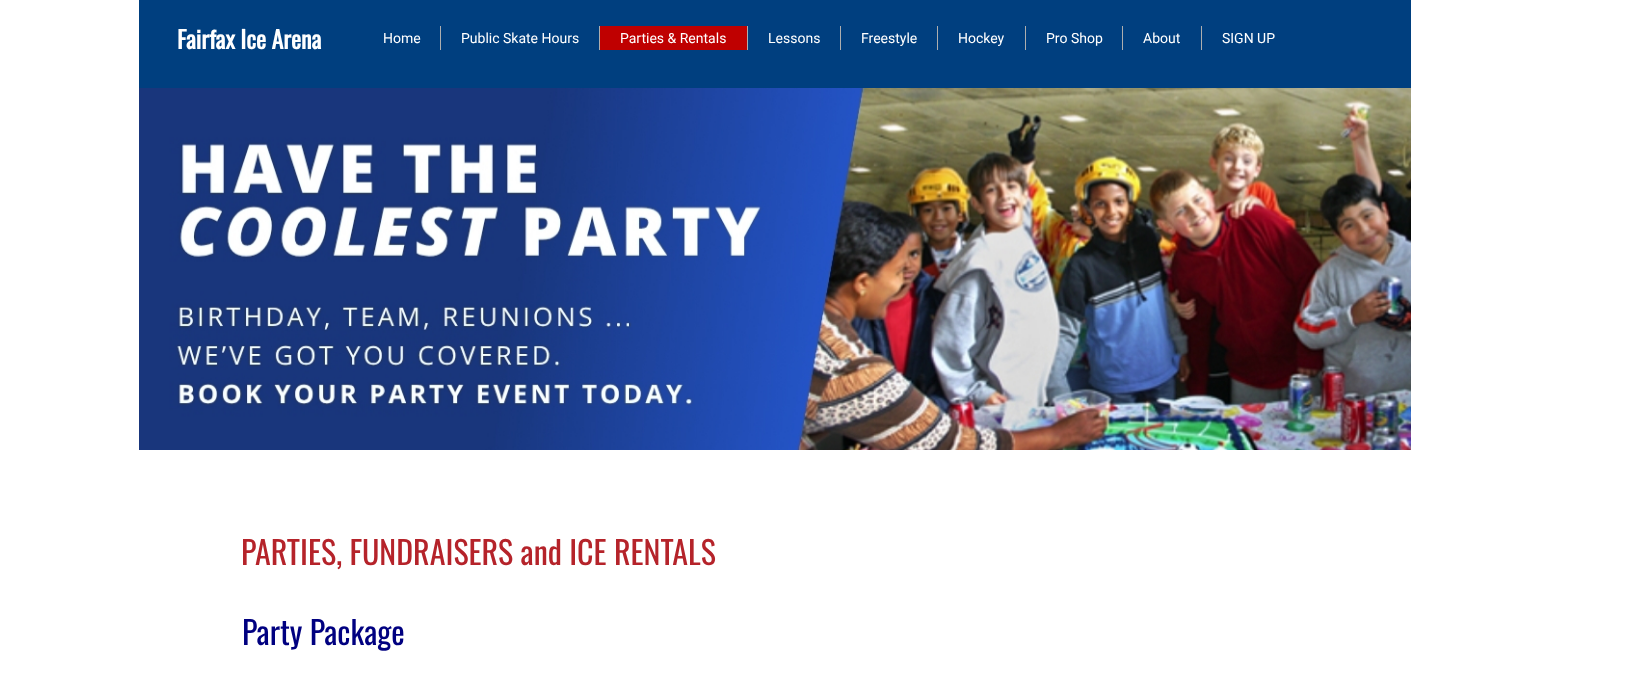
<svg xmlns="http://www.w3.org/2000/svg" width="1645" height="677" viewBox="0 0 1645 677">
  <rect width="100%" height="100%" fill="#ffffff"/>
  <rect x="139" y="0" width="1272" height="88" fill="#003f7f"/>
  <text x="177" y="49" font-family="Oswald" font-size="24" font-weight="bold" fill="#ffffff">Fairfax Ice Arena</text>
  <rect x="440" y="26" width="1" height="24" fill="#aeaeae"/>
  <text x="383" y="43" font-family="Roboto" font-size="14" fill="#ffffff">Home</text>
  <rect x="599" y="26" width="1" height="24" fill="#aeaeae"/>
  <text x="461" y="43" font-family="Roboto" font-size="14" fill="#ffffff">Public Skate Hours</text>
  <rect x="600" y="26" width="147" height="24" fill="#bf0000"/>
  <rect x="747" y="26" width="1" height="24" fill="#aeaeae"/>
  <text x="620" y="43" font-family="Roboto" font-size="14" fill="#ffffff">Parties &amp; Rentals</text>
  <rect x="840" y="26" width="1" height="24" fill="#aeaeae"/>
  <text x="768" y="43" font-family="Roboto" font-size="14" fill="#ffffff">Lessons</text>
  <rect x="937" y="26" width="1" height="24" fill="#aeaeae"/>
  <text x="861" y="43" font-family="Roboto" font-size="14" fill="#ffffff">Freestyle</text>
  <rect x="1025" y="26" width="1" height="24" fill="#aeaeae"/>
  <text x="958" y="43" font-family="Roboto" font-size="14" fill="#ffffff">Hockey</text>
  <rect x="1122" y="26" width="1" height="24" fill="#aeaeae"/>
  <text x="1046" y="43" font-family="Roboto" font-size="14" fill="#ffffff">Pro Shop</text>
  <rect x="1201" y="26" width="1" height="24" fill="#aeaeae"/>
  <text x="1143" y="43" font-family="Roboto" font-size="14" fill="#ffffff">About</text>
  <text x="1222" y="43" font-family="Roboto" font-size="14" fill="#ffffff">SIGN UP</text>
  <image x="139" y="88" width="1272" height="362" href="img1.png"/>
  <text x="241" y="565" font-family="Oswald" font-size="32" fill="#b5232a">PARTIES, FUNDRAISERS and ICE RENTALS</text>
  <text x="242" y="645" font-family="Oswald" font-size="32" fill="#000080">Party Package</text>
</svg>
